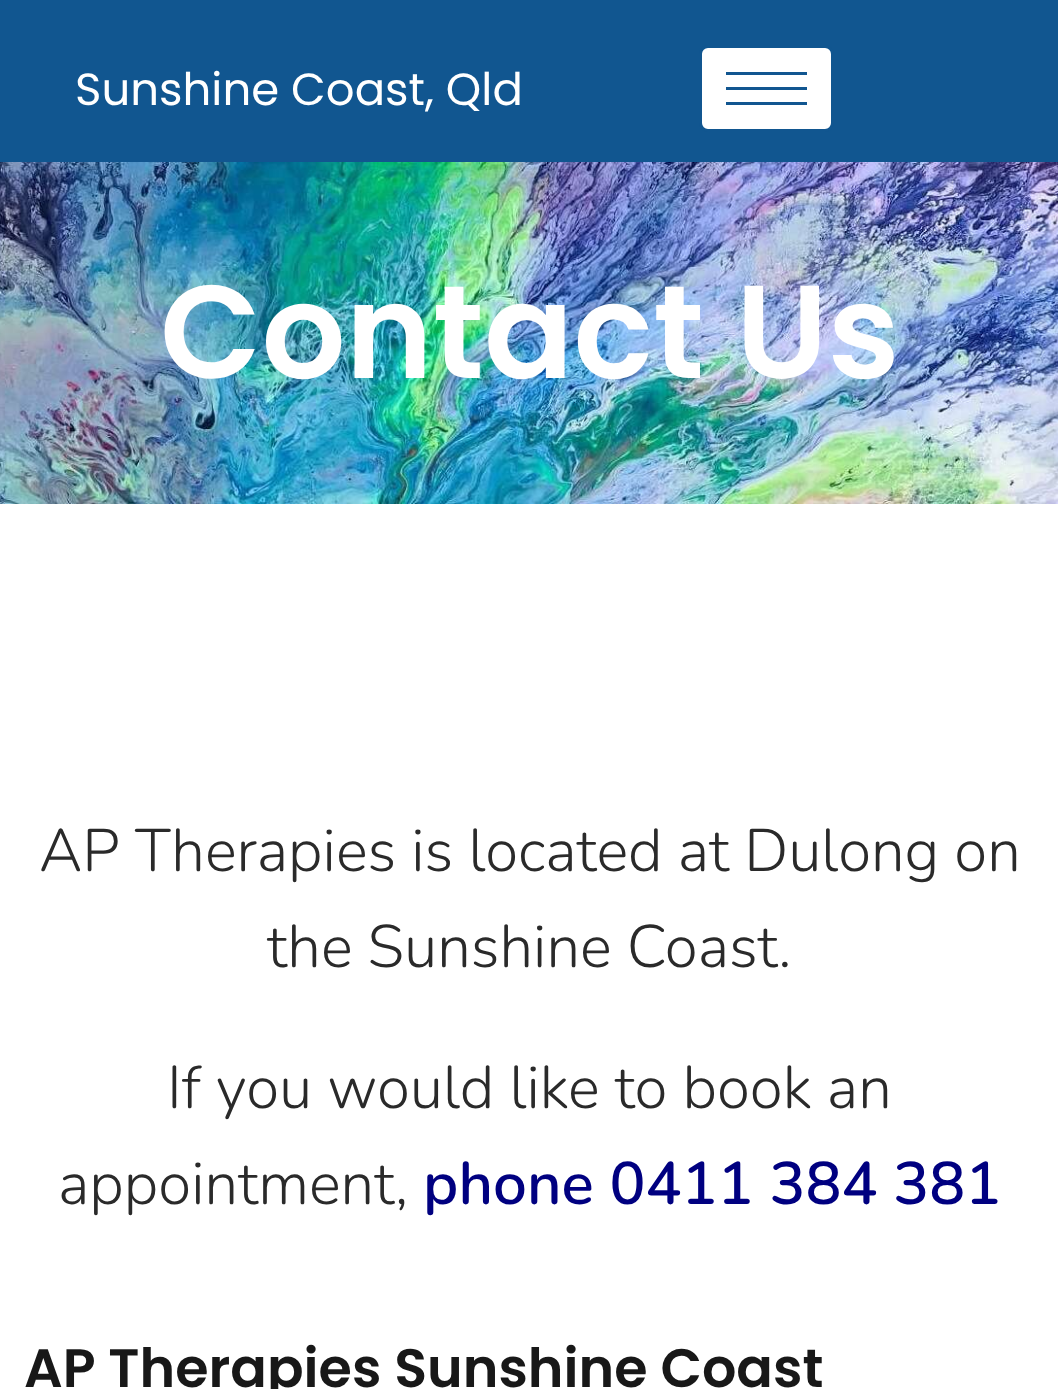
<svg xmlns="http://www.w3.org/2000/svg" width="1058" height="1389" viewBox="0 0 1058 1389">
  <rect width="100%" height="100%" fill="#ffffff"/>
  <rect x="0" y="0" width="1058" height="162" fill="#115690"/>
  <text x="75" y="105" font-family="Poppins" font-size="45" fill="#ffffff">Sunshine Coast, Qld</text>
  <rect x="700.5" y="46.5" width="132" height="84" rx="7.5" fill="#ffffff" stroke="#115690" stroke-width="3"/>
  <rect x="726" y="72" width="81" height="3" fill="#115690"/>
  <rect x="726" y="87" width="81" height="3" fill="#115690"/>
  <rect x="726" y="102" width="81" height="3" fill="#115690"/>
  <image x="0" y="162" width="1058" height="342" href="img1.png"/>
  <text x="160" y="378" font-family="Poppins" font-size="132" font-weight="600" fill="#ffffff">Contact Us</text>
  <text x="39" y="871" font-family="Nunito" font-size="60" font-weight="300" fill="#2a2a2a">AP Therapies is located at Dulong on</text>
  <text x="267" y="967" font-family="Nunito" font-size="60" font-weight="300" fill="#2a2a2a">the Sunshine Coast.</text>
  <text x="167" y="1108" font-family="Nunito" font-size="60" font-weight="300" fill="#2a2a2a">If you would like to book an</text>
  <text x="58" y="1204" font-family="Nunito" font-size="60" font-weight="300" fill="#2a2a2a">appointment,</text>
  <text x="423" y="1204" font-family="Nunito" font-size="60" font-weight="600" fill="#000080">phone 0411 384 381</text>
  <text x="24" y="1387" font-family="Poppins" font-size="54" font-weight="600" fill="#181818">AP Therapies Sunshine Coast</text>
</svg>
